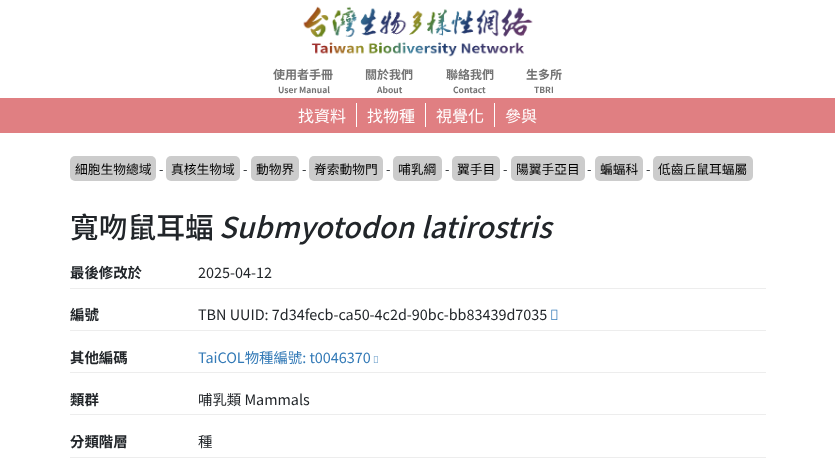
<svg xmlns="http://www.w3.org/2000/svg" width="835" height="461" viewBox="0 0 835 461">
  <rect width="100%" height="100%" fill="#ffffff"/>
  <image x="303" y="6" width="230" height="51" href="img1.png"/>
  <text x="273" y="79" font-family="Noto Sans TC" font-size="12" font-weight="bold" fill="#737373">使用者手冊</text>
  <text x="278" y="93" font-family="Noto Sans TC" font-size="8.5" font-weight="bold" fill="#737373">User Manual</text>
  <text x="365" y="79" font-family="Noto Sans TC" font-size="12" font-weight="bold" fill="#737373">關於我們</text>
  <text x="377" y="93" font-family="Noto Sans TC" font-size="8.5" font-weight="bold" fill="#737373">About</text>
  <text x="446" y="79" font-family="Noto Sans TC" font-size="12" font-weight="bold" fill="#737373">聯絡我們</text>
  <text x="453" y="93" font-family="Noto Sans TC" font-size="8.5" font-weight="bold" fill="#737373">Contact</text>
  <text x="526" y="79" font-family="Noto Sans TC" font-size="12" font-weight="bold" fill="#737373">生多所</text>
  <text x="534" y="93" font-family="Noto Sans TC" font-size="8.5" font-weight="bold" fill="#737373">TBRI</text>
  <rect x="0" y="98" width="835" height="35" fill="#e07f82"/>
  <rect x="356" y="103" width="1" height="24" fill="#ffffff"/>
  <text x="298" y="122" font-family="Noto Sans TC" font-size="16" fill="#ffffff">找資料</text>
  <rect x="425" y="103" width="1" height="24" fill="#ffffff"/>
  <text x="367" y="122" font-family="Noto Sans TC" font-size="16" fill="#ffffff">找物種</text>
  <rect x="494" y="103" width="1" height="24" fill="#ffffff"/>
  <text x="436" y="122" font-family="Noto Sans TC" font-size="16" fill="#ffffff">視覺化</text>
  <text x="505" y="122" font-family="Noto Sans TC" font-size="16" fill="#ffffff">參與</text>
  <rect x="70" y="156" width="86" height="25" rx="5" fill="#cccccc"/>
  <text x="75" y="174" font-family="Noto Sans TC" font-size="12.75" fill="#000000">細胞生物總域</text>
  <text x="159" y="174" font-family="Noto Sans TC" font-size="12.75" fill="#212529">-</text>
  <rect x="166" y="156" width="74" height="25" rx="5" fill="#cccccc"/>
  <text x="171" y="174" font-family="Noto Sans TC" font-size="12.75" fill="#000000">真核生物域</text>
  <text x="243" y="174" font-family="Noto Sans TC" font-size="12.75" fill="#212529">-</text>
  <rect x="251" y="156" width="48" height="25" rx="5" fill="#cccccc"/>
  <text x="256" y="174" font-family="Noto Sans TC" font-size="12.75" fill="#000000">動物界</text>
  <text x="302" y="174" font-family="Noto Sans TC" font-size="12.75" fill="#212529">-</text>
  <rect x="309" y="156" width="74" height="25" rx="5" fill="#cccccc"/>
  <text x="314" y="174" font-family="Noto Sans TC" font-size="12.75" fill="#000000">脊索動物門</text>
  <text x="386" y="174" font-family="Noto Sans TC" font-size="12.75" fill="#212529">-</text>
  <rect x="393" y="156" width="49" height="25" rx="5" fill="#cccccc"/>
  <text x="398" y="174" font-family="Noto Sans TC" font-size="12.75" fill="#000000">哺乳綱</text>
  <text x="445" y="174" font-family="Noto Sans TC" font-size="12.75" fill="#212529">-</text>
  <rect x="452" y="156" width="48" height="25" rx="5" fill="#cccccc"/>
  <text x="457" y="174" font-family="Noto Sans TC" font-size="12.75" fill="#000000">翼手目</text>
  <text x="503" y="174" font-family="Noto Sans TC" font-size="12.75" fill="#212529">-</text>
  <rect x="511" y="156" width="74" height="25" rx="5" fill="#cccccc"/>
  <text x="516" y="174" font-family="Noto Sans TC" font-size="12.75" fill="#000000">陽翼手亞目</text>
  <text x="587" y="174" font-family="Noto Sans TC" font-size="12.75" fill="#212529">-</text>
  <rect x="595" y="156" width="48" height="25" rx="5" fill="#cccccc"/>
  <text x="600" y="174" font-family="Noto Sans TC" font-size="12.75" fill="#000000">蝙蝠科</text>
  <text x="646" y="174" font-family="Noto Sans TC" font-size="12.75" fill="#212529">-</text>
  <rect x="653" y="156" width="100" height="25" rx="5" fill="#cccccc"/>
  <text x="658" y="174" font-family="Noto Sans TC" font-size="12.75" fill="#000000">低齒丘鼠耳蝠屬</text>
  <text x="70" y="238" font-family="Noto Sans TC" font-size="28.75" font-weight="500" fill="#212529">寬吻鼠耳蝠</text>
  <text x="219" y="238" font-family="Noto Sans TC" font-size="28.75" font-weight="500" font-style="italic" fill="#212529">Submyotodon latirostris</text>
  <rect x="70" y="288" width="696" height="1" fill="#ededed"/>
  <text x="70" y="278" font-family="Noto Sans TC" font-size="14.4" font-weight="bold" fill="#212529">最後修改於</text>
  <text x="198" y="278" font-family="Noto Sans TC" font-size="14.4" fill="#212529">2025-04-12</text>
  <rect x="70" y="330" width="696" height="1" fill="#ededed"/>
  <text x="70" y="320" font-family="Noto Sans TC" font-size="14.4" font-weight="bold" fill="#212529">編號</text>
  <text x="198" y="320" font-family="Noto Sans TC" font-size="14.4" fill="#212529">TBN UUID: 7d34fecb-ca50-4c2d-90bc-bb83439d7035</text>
  <image x="551" y="309" width="7" height="11" href="img2.png"/>
  <rect x="70" y="372" width="696" height="1" fill="#ededed"/>
  <text x="70" y="363" font-family="Noto Sans TC" font-size="14.4" font-weight="bold" fill="#212529">其他編碼</text>
  <text x="198" y="363" font-family="Noto Sans TC" font-size="14.4" fill="#337ab7">TaiCOL物種編號: t0046370</text>
  <image x="373" y="356" width="5" height="7" href="img3.png"/>
  <rect x="70" y="414" width="696" height="1" fill="#ededed"/>
  <text x="70" y="405" font-family="Noto Sans TC" font-size="14.4" font-weight="bold" fill="#212529">類群</text>
  <text x="198" y="405" font-family="Noto Sans TC" font-size="14.4" fill="#212529">哺乳類 Mammals</text>
  <rect x="70" y="457" width="696" height="1" fill="#ededed"/>
  <text x="70" y="447" font-family="Noto Sans TC" font-size="14.4" font-weight="bold" fill="#212529">分類階層</text>
  <text x="198" y="447" font-family="Noto Sans TC" font-size="14.4" fill="#212529">種</text>
</svg>
